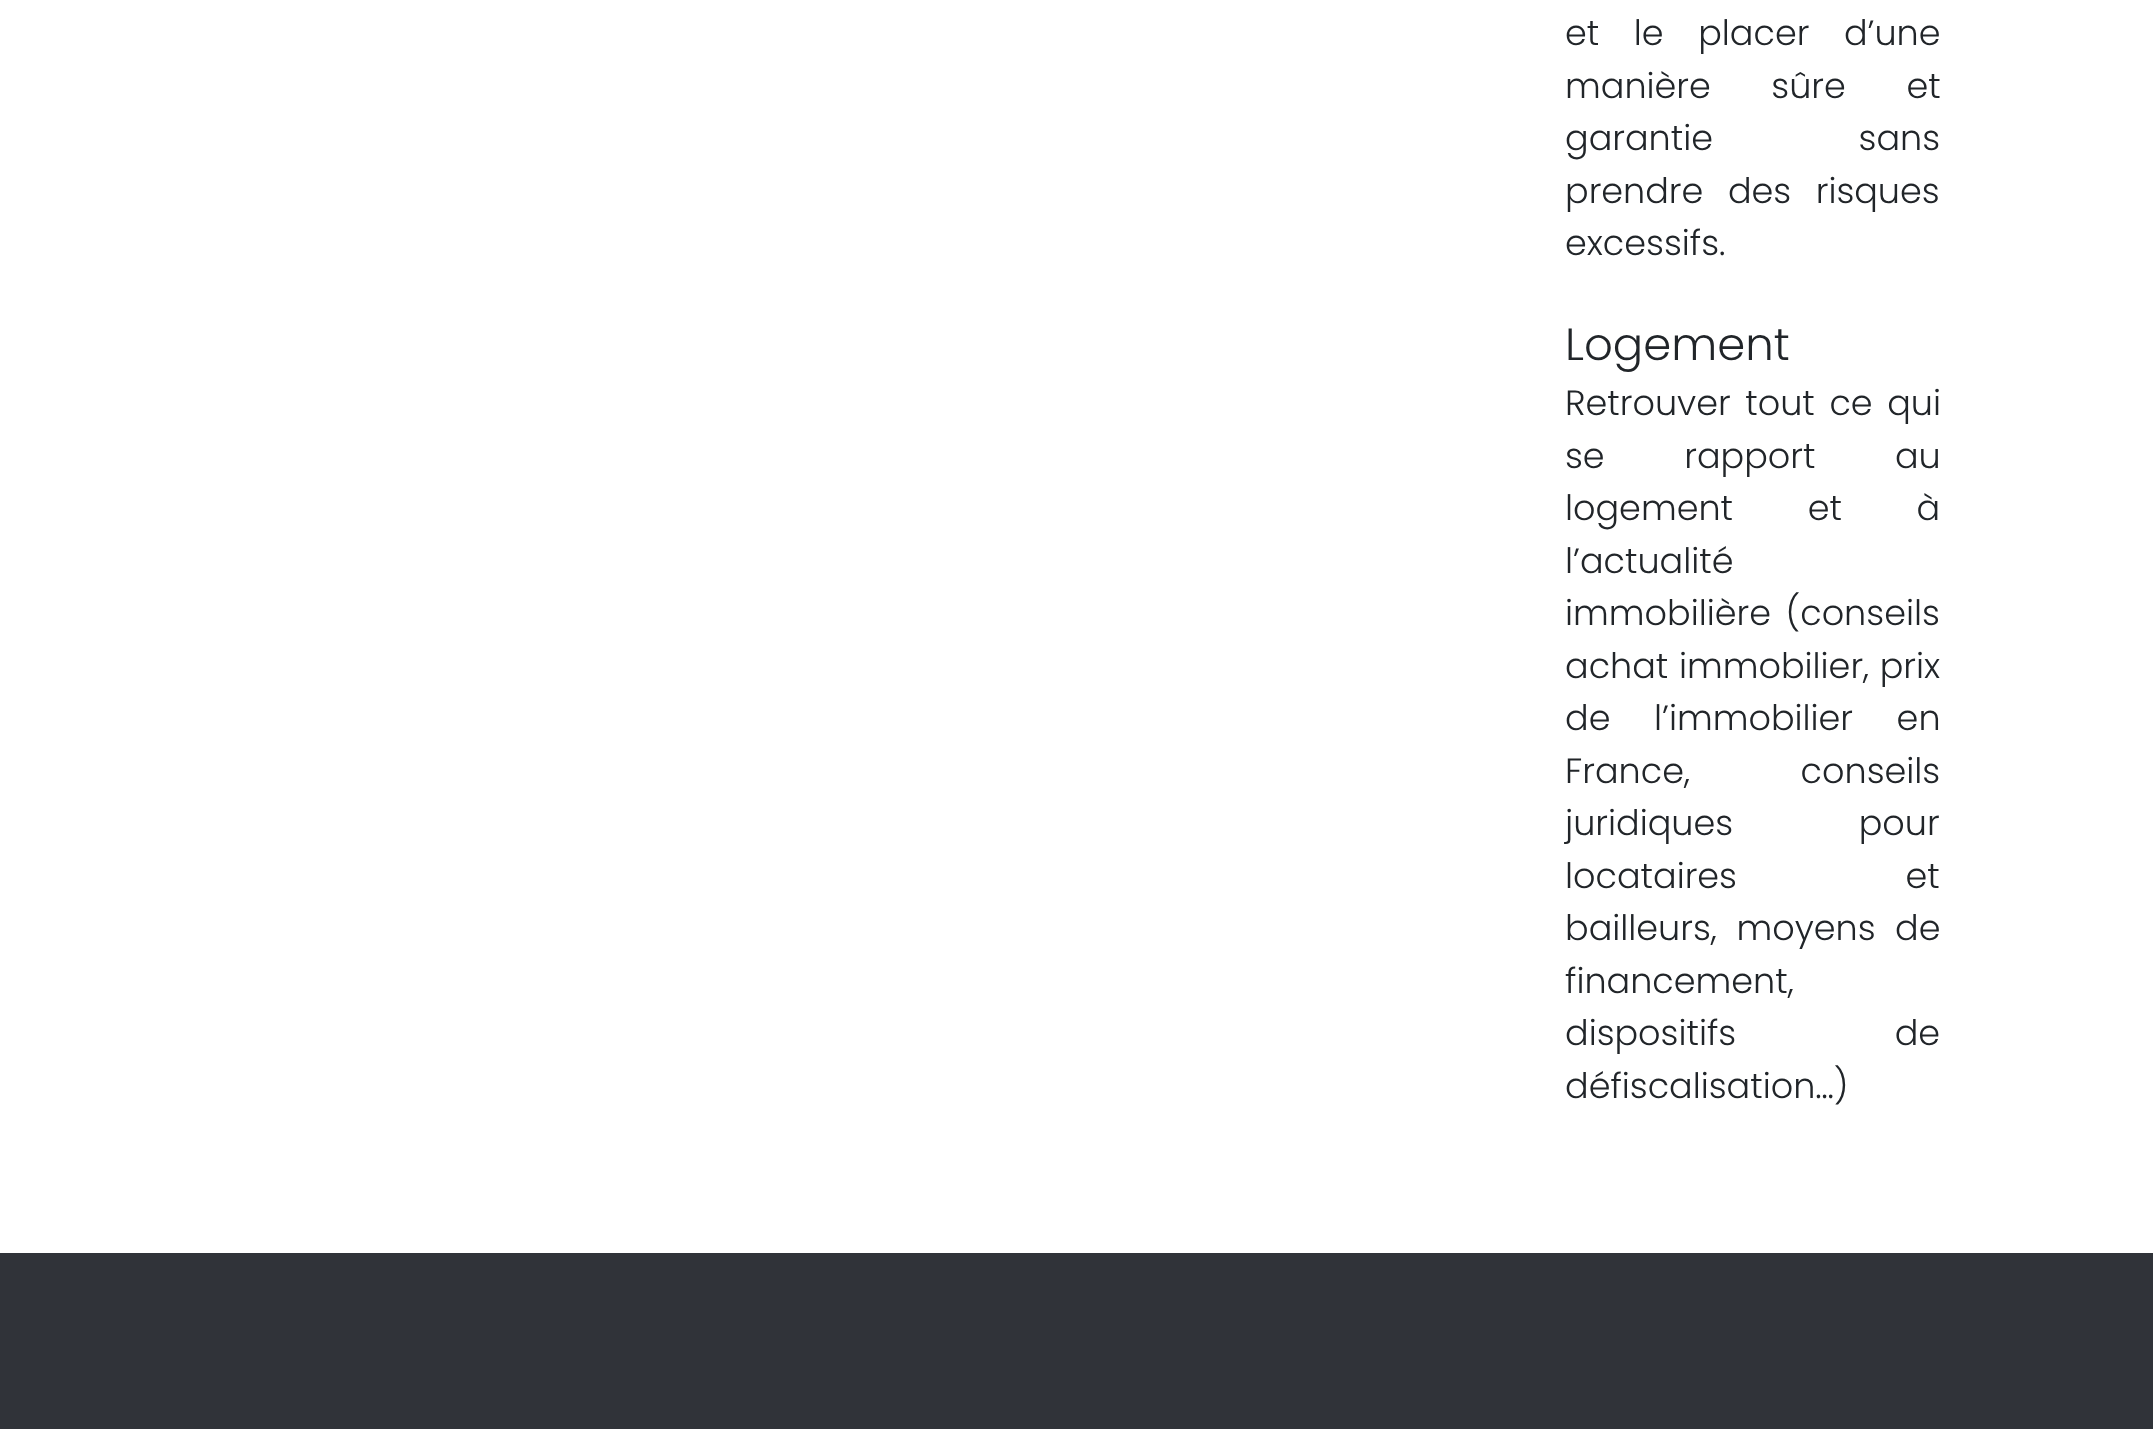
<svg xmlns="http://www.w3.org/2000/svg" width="2153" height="1429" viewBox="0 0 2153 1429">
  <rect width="100%" height="100%" fill="#ffffff"/>
  <text x="1565" y="45" word-spacing="25" font-family="Poppins" font-size="35" font-weight="300" fill="#212529">et le placer d’une</text>
  <text x="1565" y="98" word-spacing="51" font-family="Poppins" font-size="35" font-weight="300" fill="#212529">manière sûre et</text>
  <text x="1565" y="150" word-spacing="136" font-family="Poppins" font-size="35" font-weight="300" fill="#212529">garantie sans</text>
  <text x="1565" y="203" word-spacing="15" font-family="Poppins" font-size="35" font-weight="300" fill="#212529">prendre des risques</text>
  <text x="1565" y="255" font-family="Poppins" font-size="35" font-weight="300" fill="#212529">excessifs.</text>
  <text x="1565" y="360" font-family="Poppins" font-size="45" font-weight="300" fill="#212529">Logement</text>
  <text x="1565" y="415" word-spacing="5" font-family="Poppins" font-size="35" font-weight="300" fill="#212529">Retrouver tout ce qui</text>
  <text x="1565" y="468" word-spacing="70" font-family="Poppins" font-size="35" font-weight="300" fill="#212529">se rapport au</text>
  <text x="1565" y="520" word-spacing="65" font-family="Poppins" font-size="35" font-weight="300" fill="#212529">logement et à</text>
  <text x="1565" y="573" font-family="Poppins" font-size="35" font-weight="300" fill="#212529">l’actualité</text>
  <text x="1565" y="625" word-spacing="5" font-family="Poppins" font-size="35" font-weight="300" fill="#212529">immobilière (conseils</text>
  <text x="1565" y="678" word-spacing="1" font-family="Poppins" font-size="35" font-weight="300" fill="#212529">achat immobilier, prix</text>
  <text x="1565" y="730" word-spacing="34" font-family="Poppins" font-size="35" font-weight="300" fill="#212529">de l’immobilier en</text>
  <text x="1565" y="783" word-spacing="101" font-family="Poppins" font-size="35" font-weight="300" fill="#212529">France, conseils</text>
  <text x="1565" y="835" word-spacing="116" font-family="Poppins" font-size="35" font-weight="300" fill="#212529">juridiques pour</text>
  <text x="1565" y="888" word-spacing="159" font-family="Poppins" font-size="35" font-weight="300" fill="#212529">locataires et</text>
  <text x="1565" y="940" word-spacing="10" font-family="Poppins" font-size="35" font-weight="300" fill="#212529">bailleurs, moyens de</text>
  <text x="1565" y="993" font-family="Poppins" font-size="35" font-weight="300" fill="#212529">financement,</text>
  <text x="1565" y="1045" word-spacing="149" font-family="Poppins" font-size="35" font-weight="300" fill="#212529">dispositifs de</text>
  <text x="1565" y="1098" font-family="Poppins" font-size="35" font-weight="300" fill="#212529">défiscalisation…)</text>
  <rect x="0" y="1253" width="2153" height="176" fill="#303339"/>
</svg>
